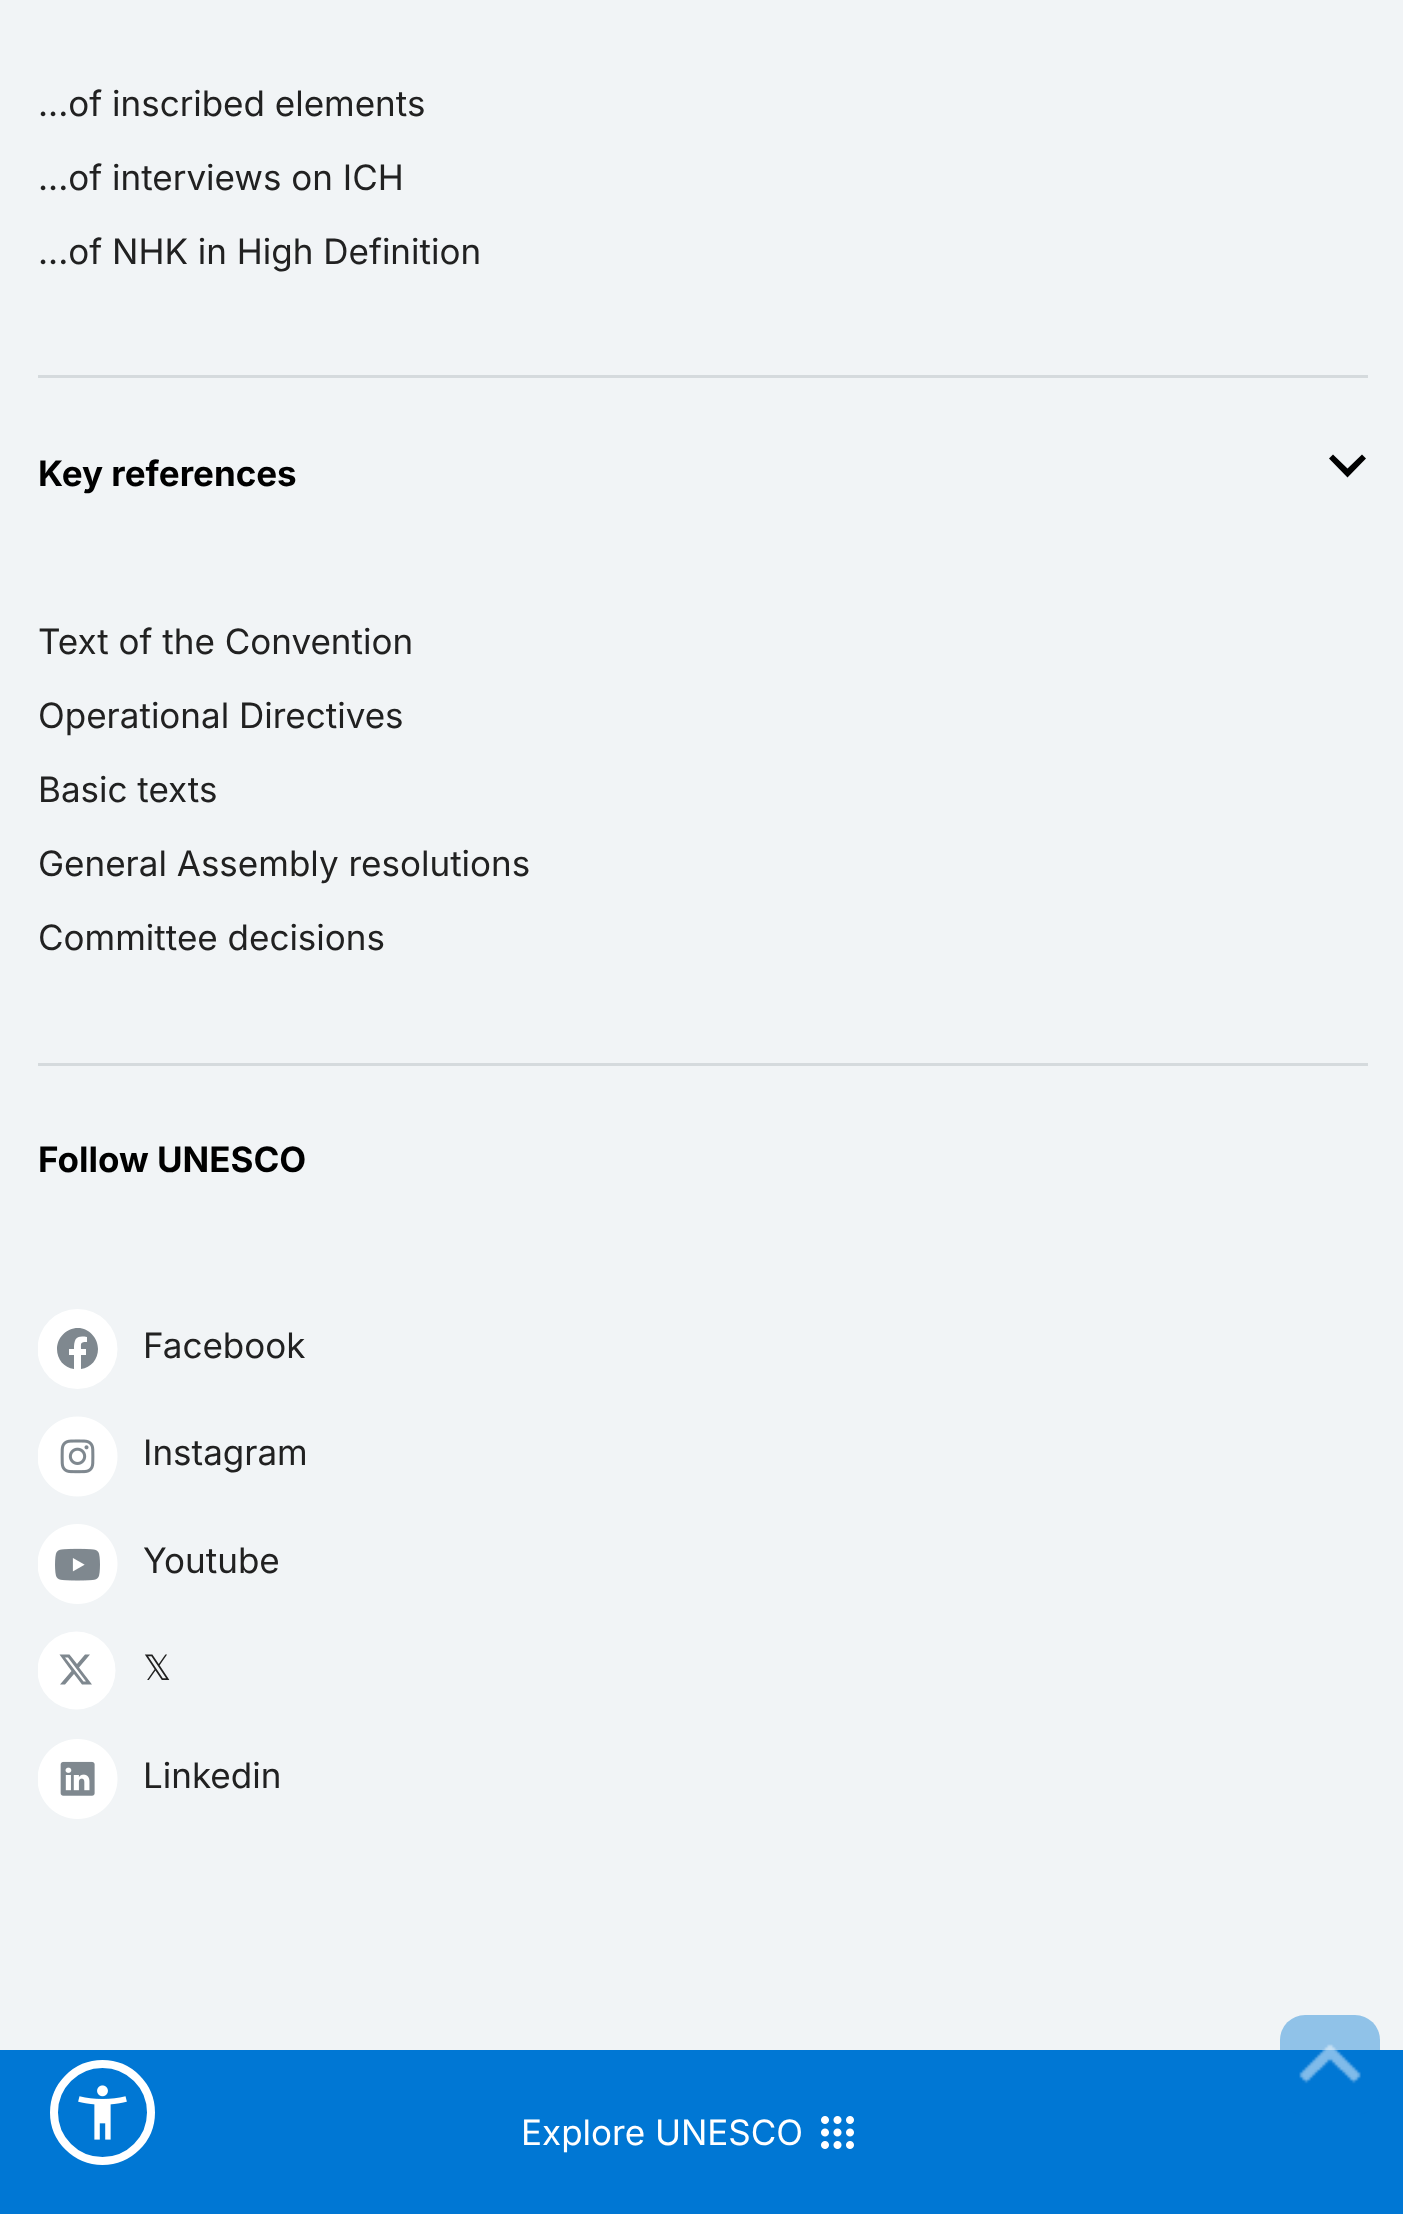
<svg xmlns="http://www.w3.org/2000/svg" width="1403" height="2214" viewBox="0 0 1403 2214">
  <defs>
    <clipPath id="clip1"><rect x="38" y="1308" width="80" height="82"/></clipPath>
    <clipPath id="clip2"><rect x="38" y="1630" width="80" height="83"/></clipPath>
  </defs>
  <rect width="100%" height="100%" fill="#f1f4f6"/>
  <text x="38" y="116" font-family="Inter" font-size="35" fill="#212121">...of inscribed elements</text>
  <text x="38" y="190" font-family="Inter" font-size="35" fill="#212121">...of interviews on ICH</text>
  <text x="38" y="264" font-family="Inter" font-size="35" fill="#212121">...of NHK in High Definition</text>
  <rect x="38" y="375" width="1330" height="3" fill="#d5dadd"/>
  <text x="38" y="486" font-family="Inter" font-size="35" font-weight="bold" fill="#000000">Key references</text>
  <path d="M1362 454.5L1347.5 468.5L1333 454.5L1329 458.5L1347.5 477.5L1366 458.5Z" fill="#000000"/>
  <text x="38" y="654" font-family="Inter" font-size="35" fill="#212121">Text of the Convention</text>
  <text x="38" y="728" font-family="Inter" font-size="35" fill="#212121">Operational Directives</text>
  <text x="38" y="802" font-family="Inter" font-size="35" fill="#212121">Basic texts</text>
  <text x="38" y="876" font-family="Inter" font-size="35" fill="#212121">General Assembly resolutions</text>
  <text x="38" y="950" font-family="Inter" font-size="35" fill="#212121">Committee decisions</text>
  <rect x="38" y="1063" width="1330" height="3" fill="#d5dadd"/>
  <text x="38" y="1172" font-family="Inter" font-size="35" font-weight="bold" fill="#000000">Follow UNESCO</text>
  <g clip-path="url(#clip1)">
    <circle cx="77.5" cy="1349" r="40" fill="#ffffff"/>
  </g>
  <path d="M98 1349C98 1338 89 1328 78 1328C66 1328 57 1338 57 1349C57 1359 64 1368 74 1369V1355H69V1349H74C74 1339 76 1335 87 1337V1342C80 1342 81 1343 81 1349H86V1355H81V1369C91 1368 98 1359 98 1349Z" fill="#7f888f"/>
  <text x="143" y="1358" font-family="Inter" font-size="35" fill="#212121">Facebook</text>
  <image x="38" y="1416" width="80" height="81" href="img1.png"/>
  <text x="143" y="1465" font-family="Inter" font-size="35" fill="#212121">Instagram</text>
  <image x="38" y="1524" width="80" height="80" href="img2.png"/>
  <text x="143" y="1573" font-family="Inter" font-size="35" fill="#212121">Youtube</text>
  <g clip-path="url(#clip2)">
    <circle cx="76.5" cy="1670.5" r="39" fill="#ffffff"/>
  </g>
  <path d="M85 1654.5H90L79 1667.5L92 1684.5H82L74 1674L65 1684.5H60L71.5 1671L59.5 1654.5H69.5L77 1664ZM83.5 1681.5H86L68 1657.5H65Z" fill="#7f888f"/>
  <text x="143" y="1680" font-family="DejaVu Sans" font-size="35" fill="#212121">𝕏</text>
  <image x="38" y="1739" width="80" height="80" href="img3.png"/>
  <text x="143" y="1788" font-family="Inter" font-size="35" fill="#212121">Linkedin</text>
  <rect x="0" y="2050" width="1403" height="164" fill="#0077d4"/>
  <text x="521" y="2145" font-family="Inter" font-size="35" fill="#ffffff">Explore UNESCO</text>
  <image x="821" y="2116" width="33" height="33" href="img4.png"/>
  <rect x="1280" y="2015" width="100" height="100" rx="25" fill="#0077d4" fill-opacity="0.4"/>
  <image x="1299" y="2044" width="62" height="40" href="img5.png"/>
  <circle cx="102.5" cy="2112.5" r="48.5" fill="none" stroke="#ffffff" stroke-width="8"/>
  <image x="78" y="2085" width="49" height="55" href="img6.png"/>
</svg>
